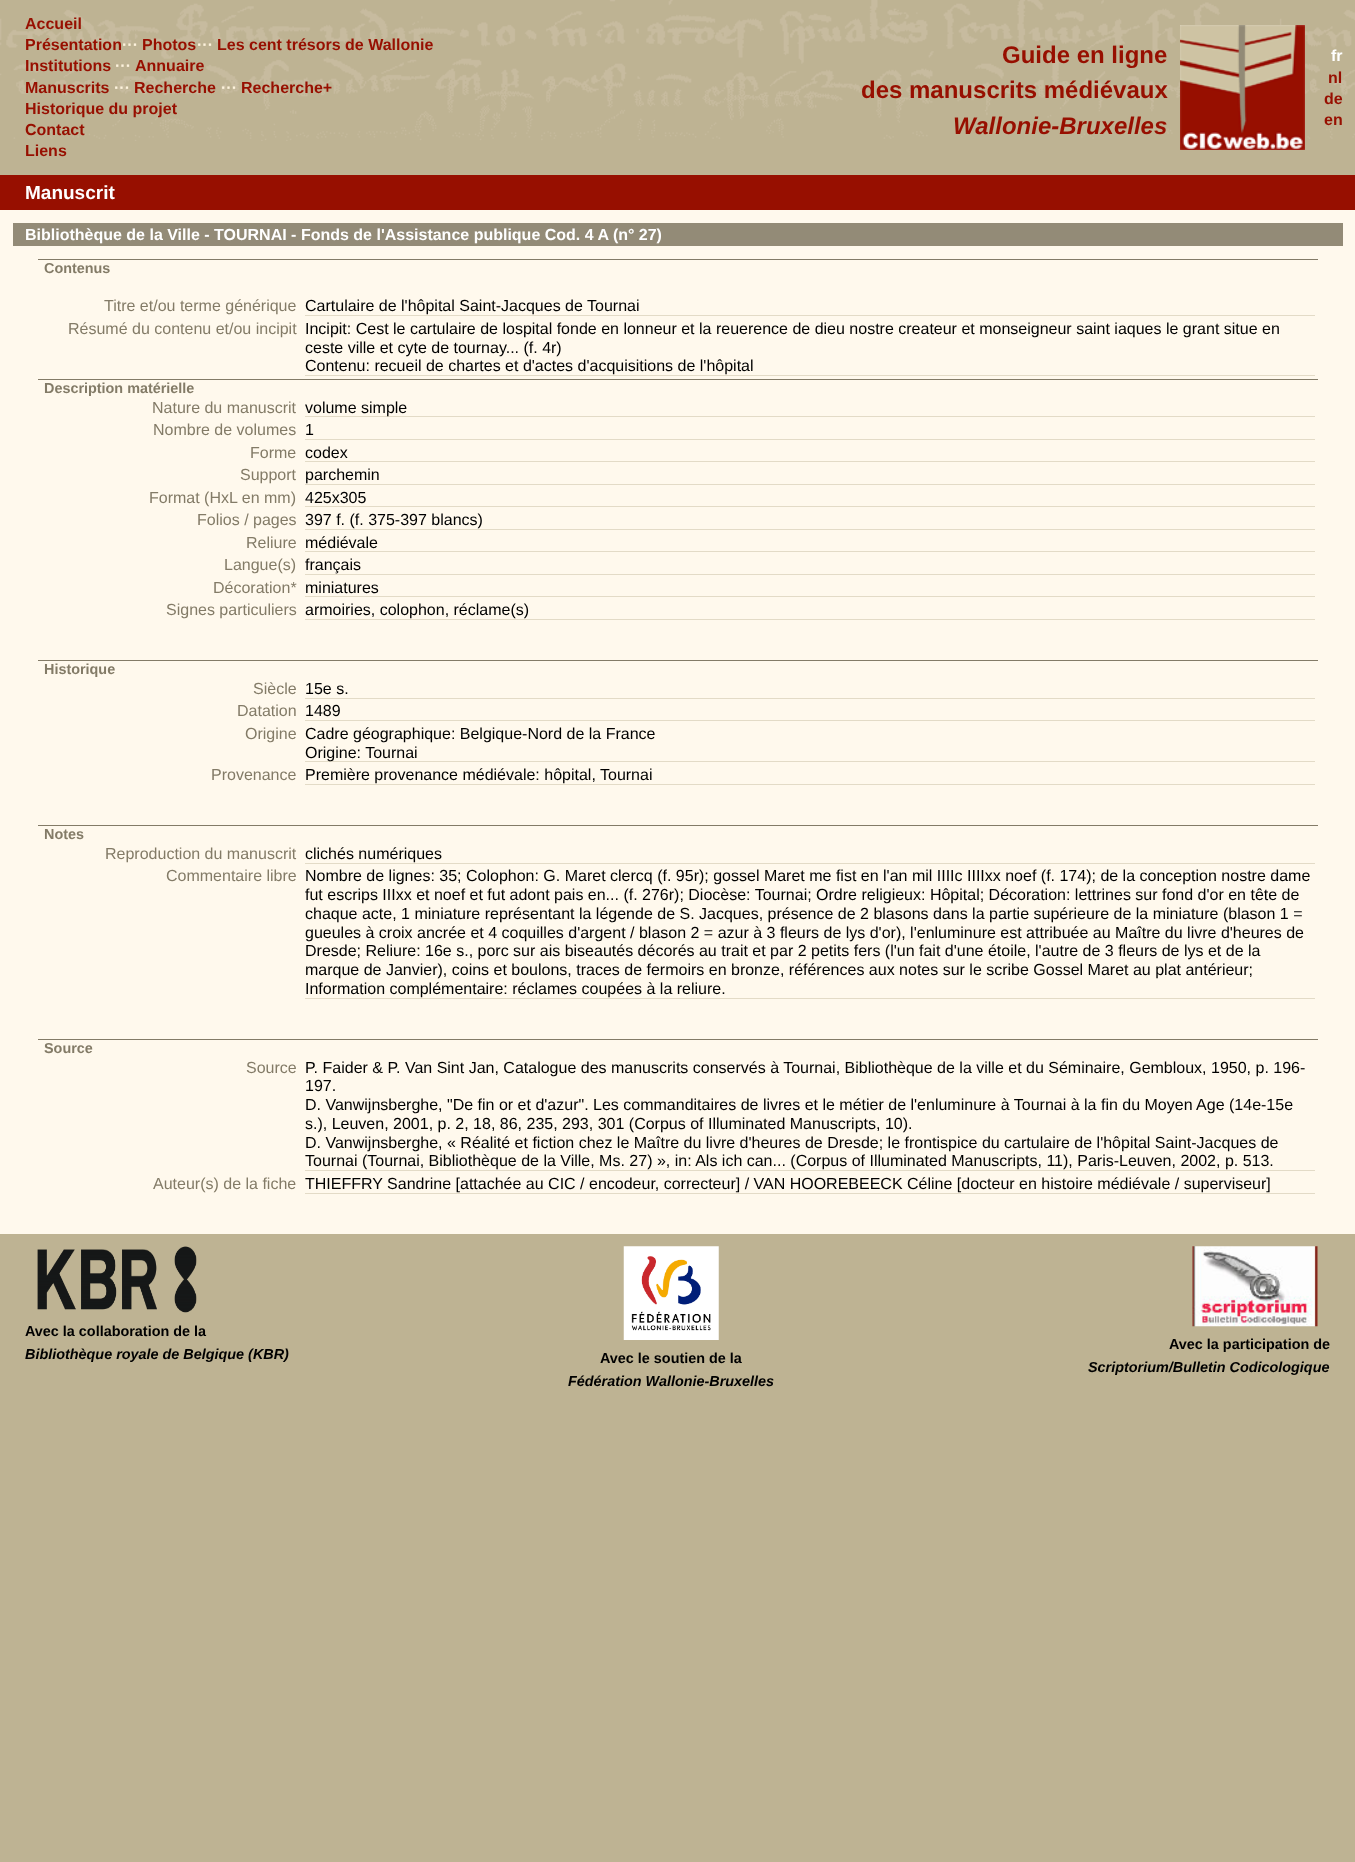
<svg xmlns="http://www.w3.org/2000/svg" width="1355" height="1862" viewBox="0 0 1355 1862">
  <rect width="100%" height="100%" fill="#beb393"/>
  <image x="0" y="0" width="1355" height="141" href="img1.png"/>
  <text x="25" y="29" font-family="Liberation Sans" font-size="16" font-weight="bold" fill="#970f00">Accueil</text>
  <text x="25" y="50" font-family="Liberation Sans" font-size="16" font-weight="bold" fill="#970f00">Présentation</text>
  <text x="122" y="50" font-family="Liberation Sans" font-size="16" font-weight="bold" fill="#fef3dd">···</text>
  <text x="142" y="50" font-family="Liberation Sans" font-size="16" font-weight="bold" fill="#970f00">Photos</text>
  <text x="197" y="50" font-family="Liberation Sans" font-size="16" font-weight="bold" fill="#fef3dd">···</text>
  <text x="217" y="50" font-family="Liberation Sans" font-size="16" font-weight="bold" fill="#970f00">Les cent trésors de Wallonie</text>
  <text x="25" y="71" font-family="Liberation Sans" font-size="16" font-weight="bold" fill="#970f00">Institutions</text>
  <text x="115" y="71" font-family="Liberation Sans" font-size="16" font-weight="bold" fill="#fef3dd">···</text>
  <text x="135" y="71" font-family="Liberation Sans" font-size="16" font-weight="bold" fill="#970f00">Annuaire</text>
  <text x="25" y="93" font-family="Liberation Sans" font-size="16" font-weight="bold" fill="#970f00">Manuscrits</text>
  <text x="114" y="93" font-family="Liberation Sans" font-size="16" font-weight="bold" fill="#fef3dd">···</text>
  <text x="134" y="93" font-family="Liberation Sans" font-size="16" font-weight="bold" fill="#970f00">Recherche</text>
  <text x="221" y="93" font-family="Liberation Sans" font-size="16" font-weight="bold" fill="#fef3dd">···</text>
  <text x="241" y="93" font-family="Liberation Sans" font-size="16" font-weight="bold" fill="#970f00">Recherche+</text>
  <text x="25" y="114" font-family="Liberation Sans" font-size="16" font-weight="bold" fill="#970f00">Historique du projet</text>
  <text x="25" y="135" font-family="Liberation Sans" font-size="16" font-weight="bold" fill="#970f00">Contact</text>
  <text x="25" y="156" font-family="Liberation Sans" font-size="16" font-weight="bold" fill="#970f00">Liens</text>
  <text x="1002" y="63" font-family="Liberation Sans" font-size="24" font-weight="bold" fill="#970f00">Guide en ligne</text>
  <text x="861" y="98" font-family="Liberation Sans" font-size="24" font-weight="bold" fill="#970f00">des manuscrits médiévaux</text>
  <text x="953" y="134" font-family="Liberation Sans" font-size="24" font-weight="bold" font-style="italic" fill="#970f00">Wallonie-Bruxelles</text>
  <image x="1180" y="25" width="125" height="125" href="img2.png"/>
  <text x="1331" y="61" font-family="Liberation Sans" font-size="16" font-weight="bold" fill="#ffffff">fr</text>
  <text x="1328" y="83" font-family="Liberation Sans" font-size="16" font-weight="bold" fill="#970f00">nl</text>
  <text x="1324" y="104" font-family="Liberation Sans" font-size="16" font-weight="bold" fill="#970f00">de</text>
  <text x="1324" y="125" font-family="Liberation Sans" font-size="16" font-weight="bold" fill="#970f00">en</text>
  <rect x="0" y="210" width="1355" height="1024" fill="#fff9ed"/>
  <rect x="0" y="175" width="1355" height="35" fill="#970f00"/>
  <text x="25" y="199" font-family="Liberation Sans" font-size="19" font-weight="bold" fill="#ffffff">Manuscrit</text>
  <rect x="13" y="223" width="1330" height="23" fill="#938b77"/>
  <text x="25" y="240" font-family="Liberation Sans" font-size="16" font-weight="bold" fill="#ffffff">Bibliothèque de la Ville - TOURNAI - Fonds de l'Assistance publique Cod. 4 A (n° 27)</text>
  <rect x="38" y="259" width="1280" height="1" fill="#837b67"/>
  <text x="44" y="273" font-family="Liberation Sans" font-size="14.4" font-weight="bold" fill="#837b67">Contenus</text>
  <text x="104" y="311" font-family="Liberation Sans" font-size="16" fill="#837b67">Titre et/ou terme générique</text>
  <rect x="305" y="315" width="1010" height="1" fill="#e3dbc7"/>
  <text x="305" y="311" font-family="Liberation Sans" font-size="16" fill="#000000">Cartulaire de l'hôpital Saint-Jacques de Tournai</text>
  <text x="68" y="334" font-family="Liberation Sans" font-size="16" fill="#837b67">Résumé du contenu et/ou incipit</text>
  <rect x="305" y="375" width="1010" height="1" fill="#e3dbc7"/>
  <text x="305" y="334" font-family="Liberation Sans" font-size="16" fill="#000000">Incipit: Cest le cartulaire de lospital fonde en lonneur et la reuerence de dieu nostre createur et monseigneur saint iaques le grant situe en</text>
  <text x="305" y="353" font-family="Liberation Sans" font-size="16" fill="#000000">ceste ville et cyte de tournay... (f. 4r)</text>
  <text x="305" y="371" font-family="Liberation Sans" font-size="16" fill="#000000">Contenu: recueil de chartes et d'actes d'acquisitions de l'hôpital</text>
  <rect x="38" y="379" width="1280" height="1" fill="#837b67"/>
  <text x="44" y="393" font-family="Liberation Sans" font-size="14.4" font-weight="bold" fill="#837b67">Description matérielle</text>
  <text x="152" y="413" font-family="Liberation Sans" font-size="16" fill="#837b67">Nature du manuscrit</text>
  <rect x="305" y="416" width="1010" height="1" fill="#e3dbc7"/>
  <text x="305" y="413" font-family="Liberation Sans" font-size="16" fill="#000000">volume simple</text>
  <text x="153" y="435" font-family="Liberation Sans" font-size="16" fill="#837b67">Nombre de volumes</text>
  <rect x="305" y="439" width="1010" height="1" fill="#e3dbc7"/>
  <text x="305" y="435" font-family="Liberation Sans" font-size="16" fill="#000000">1</text>
  <text x="250" y="458" font-family="Liberation Sans" font-size="16" fill="#837b67">Forme</text>
  <rect x="305" y="461" width="1010" height="1" fill="#e3dbc7"/>
  <text x="305" y="458" font-family="Liberation Sans" font-size="16" fill="#000000">codex</text>
  <text x="240" y="480" font-family="Liberation Sans" font-size="16" fill="#837b67">Support</text>
  <rect x="305" y="484" width="1010" height="1" fill="#e3dbc7"/>
  <text x="305" y="480" font-family="Liberation Sans" font-size="16" fill="#000000">parchemin</text>
  <text x="149" y="503" font-family="Liberation Sans" font-size="16" fill="#837b67">Format (HxL en mm)</text>
  <rect x="305" y="506" width="1010" height="1" fill="#e3dbc7"/>
  <text x="305" y="503" font-family="Liberation Sans" font-size="16" fill="#000000">425x305</text>
  <text x="197" y="525" font-family="Liberation Sans" font-size="16" fill="#837b67">Folios / pages</text>
  <rect x="305" y="529" width="1010" height="1" fill="#e3dbc7"/>
  <text x="305" y="525" font-family="Liberation Sans" font-size="16" fill="#000000">397 f. (f. 375-397 blancs)</text>
  <text x="246" y="548" font-family="Liberation Sans" font-size="16" fill="#837b67">Reliure</text>
  <rect x="305" y="551" width="1010" height="1" fill="#e3dbc7"/>
  <text x="305" y="548" font-family="Liberation Sans" font-size="16" fill="#000000">médiévale</text>
  <text x="224" y="570" font-family="Liberation Sans" font-size="16" fill="#837b67">Langue(s)</text>
  <rect x="305" y="574" width="1010" height="1" fill="#e3dbc7"/>
  <text x="305" y="570" font-family="Liberation Sans" font-size="16" fill="#000000">français</text>
  <text x="213" y="593" font-family="Liberation Sans" font-size="16" fill="#837b67">Décoration*</text>
  <rect x="305" y="596" width="1010" height="1" fill="#e3dbc7"/>
  <text x="305" y="593" font-family="Liberation Sans" font-size="16" fill="#000000">miniatures</text>
  <text x="166" y="615" font-family="Liberation Sans" font-size="16" fill="#837b67">Signes particuliers</text>
  <rect x="305" y="619" width="1010" height="1" fill="#e3dbc7"/>
  <text x="305" y="615" font-family="Liberation Sans" font-size="16" fill="#000000">armoiries, colophon, réclame(s)</text>
  <rect x="38" y="660" width="1280" height="1" fill="#837b67"/>
  <text x="44" y="674" font-family="Liberation Sans" font-size="14.4" font-weight="bold" fill="#837b67">Historique</text>
  <text x="253" y="694" font-family="Liberation Sans" font-size="16" fill="#837b67">Siècle</text>
  <rect x="305" y="698" width="1010" height="1" fill="#e3dbc7"/>
  <text x="305" y="694" font-family="Liberation Sans" font-size="16" fill="#000000">15e s.</text>
  <text x="237" y="716" font-family="Liberation Sans" font-size="16" fill="#837b67">Datation</text>
  <rect x="305" y="720" width="1010" height="1" fill="#e3dbc7"/>
  <text x="305" y="716" font-family="Liberation Sans" font-size="16" fill="#000000">1489</text>
  <text x="245" y="739" font-family="Liberation Sans" font-size="16" fill="#837b67">Origine</text>
  <rect x="305" y="761" width="1010" height="1" fill="#e3dbc7"/>
  <text x="305" y="739" font-family="Liberation Sans" font-size="16" fill="#000000">Cadre géographique: Belgique-Nord de la France</text>
  <text x="305" y="758" font-family="Liberation Sans" font-size="16" fill="#000000">Origine: Tournai</text>
  <text x="211" y="780" font-family="Liberation Sans" font-size="16" fill="#837b67">Provenance</text>
  <rect x="305" y="784" width="1010" height="1" fill="#e3dbc7"/>
  <text x="305" y="780" font-family="Liberation Sans" font-size="16" fill="#000000">Première provenance médiévale: hôpital, Tournai</text>
  <rect x="38" y="825" width="1280" height="1" fill="#837b67"/>
  <text x="44" y="839" font-family="Liberation Sans" font-size="14.4" font-weight="bold" fill="#837b67">Notes</text>
  <text x="105" y="859" font-family="Liberation Sans" font-size="16" fill="#837b67">Reproduction du manuscrit</text>
  <rect x="305" y="863" width="1010" height="1" fill="#e3dbc7"/>
  <text x="305" y="859" font-family="Liberation Sans" font-size="16" fill="#000000">clichés numériques</text>
  <text x="166" y="881" font-family="Liberation Sans" font-size="16" fill="#837b67">Commentaire libre</text>
  <rect x="305" y="998" width="1010" height="1" fill="#e3dbc7"/>
  <text x="305" y="881" font-family="Liberation Sans" font-size="16" fill="#000000">Nombre de lignes: 35; Colophon: G. Maret clercq (f. 95r); gossel Maret me fist en l'an mil IIIIc IIIIxx noef (f. 174); de la conception nostre dame</text>
  <text x="305" y="900" font-family="Liberation Sans" font-size="16" fill="#000000">fut escrips IIIxx et noef et fut adont pais en... (f. 276r); Diocèse: Tournai; Ordre religieux: Hôpital; Décoration: lettrines sur fond d'or en tête de</text>
  <text x="305" y="919" font-family="Liberation Sans" font-size="16" fill="#000000">chaque acte, 1 miniature représentant la légende de S. Jacques, présence de 2 blasons dans la partie supérieure de la miniature (blason 1 =</text>
  <text x="305" y="938" font-family="Liberation Sans" font-size="16" fill="#000000">gueules à croix ancrée et 4 coquilles d'argent / blason 2 = azur à 3 fleurs de lys d'or), l'enluminure est attribuée au Maître du livre d'heures de</text>
  <text x="305" y="956" font-family="Liberation Sans" font-size="16" fill="#000000">Dresde; Reliure: 16e s., porc sur ais biseautés décorés au trait et par 2 petits fers (l'un fait d'une étoile, l'autre de 3 fleurs de lys et de la</text>
  <text x="305" y="975" font-family="Liberation Sans" font-size="16" fill="#000000">marque de Janvier), coins et boulons, traces de fermoirs en bronze, références aux notes sur le scribe Gossel Maret au plat antérieur;</text>
  <text x="305" y="994" font-family="Liberation Sans" font-size="16" fill="#000000">Information complémentaire: réclames coupées à la reliure.</text>
  <rect x="38" y="1039" width="1280" height="1" fill="#837b67"/>
  <text x="44" y="1053" font-family="Liberation Sans" font-size="14.4" font-weight="bold" fill="#837b67">Source</text>
  <text x="246" y="1073" font-family="Liberation Sans" font-size="16" fill="#837b67">Source</text>
  <rect x="305" y="1170" width="1010" height="1" fill="#e3dbc7"/>
  <text x="305" y="1073" font-family="Liberation Sans" font-size="16" fill="#000000">P. Faider &amp; P. Van Sint Jan, Catalogue des manuscrits conservés à Tournai, Bibliothèque de la ville et du Séminaire, Gembloux, 1950, p. 196-</text>
  <text x="305" y="1091" font-family="Liberation Sans" font-size="16" fill="#000000">197.</text>
  <text x="305" y="1110" font-family="Liberation Sans" font-size="16" fill="#000000">D. Vanwijnsberghe, "De fin or et d'azur". Les commanditaires de livres et le métier de l'enluminure à Tournai à la fin du Moyen Age (14e-15e</text>
  <text x="305" y="1129" font-family="Liberation Sans" font-size="16" fill="#000000">s.), Leuven, 2001, p. 2, 18, 86, 235, 293, 301 (Corpus of Illuminated Manuscripts, 10).</text>
  <text x="305" y="1148" font-family="Liberation Sans" font-size="16" fill="#000000">D. Vanwijnsberghe, « Réalité et fiction chez le Maître du livre d'heures de Dresde; le frontispice du cartulaire de l'hôpital Saint-Jacques de</text>
  <text x="305" y="1166" font-family="Liberation Sans" font-size="16" fill="#000000">Tournai (Tournai, Bibliothèque de la Ville, Ms. 27) », in: Als ich can... (Corpus of Illuminated Manuscripts, 11), Paris-Leuven, 2002, p. 513.</text>
  <text x="153" y="1189" font-family="Liberation Sans" font-size="16" fill="#837b67">Auteur(s) de la fiche</text>
  <rect x="305" y="1193" width="1010" height="1" fill="#e3dbc7"/>
  <text x="305" y="1189" font-family="Liberation Sans" font-size="16" fill="#000000">THIEFFRY Sandrine [attachée au CIC / encodeur, correcteur] / VAN HOOREBEECK Céline [docteur en histoire médiévale / superviseur]</text>
  <image x="37" y="1246" width="160" height="67" href="img3.png"/>
  <text x="25" y="1336" font-family="Liberation Sans" font-size="14.4" font-weight="bold" fill="#000000">Avec la collaboration de la</text>
  <text x="25" y="1359" font-family="Liberation Sans" font-size="14.4" font-weight="bold" font-style="italic" fill="#000000">Bibliothèque royale de Belgique (KBR)</text>
  <image x="623" y="1246" width="96" height="94" href="img4.png"/>
  <text x="600" y="1363" font-family="Liberation Sans" font-size="14.4" font-weight="bold" fill="#000000">Avec le soutien de la</text>
  <text x="568" y="1386" font-family="Liberation Sans" font-size="14.4" font-weight="bold" font-style="italic" fill="#000000">Fédération Wallonie-Bruxelles</text>
  <image x="1192" y="1246" width="126" height="81" href="img5.png"/>
  <text x="1169" y="1349" font-family="Liberation Sans" font-size="14.4" font-weight="bold" fill="#000000">Avec la participation de</text>
  <text x="1088" y="1372" font-family="Liberation Sans" font-size="14.4" font-weight="bold" font-style="italic" fill="#000000">Scriptorium/Bulletin Codicologique</text>
</svg>
